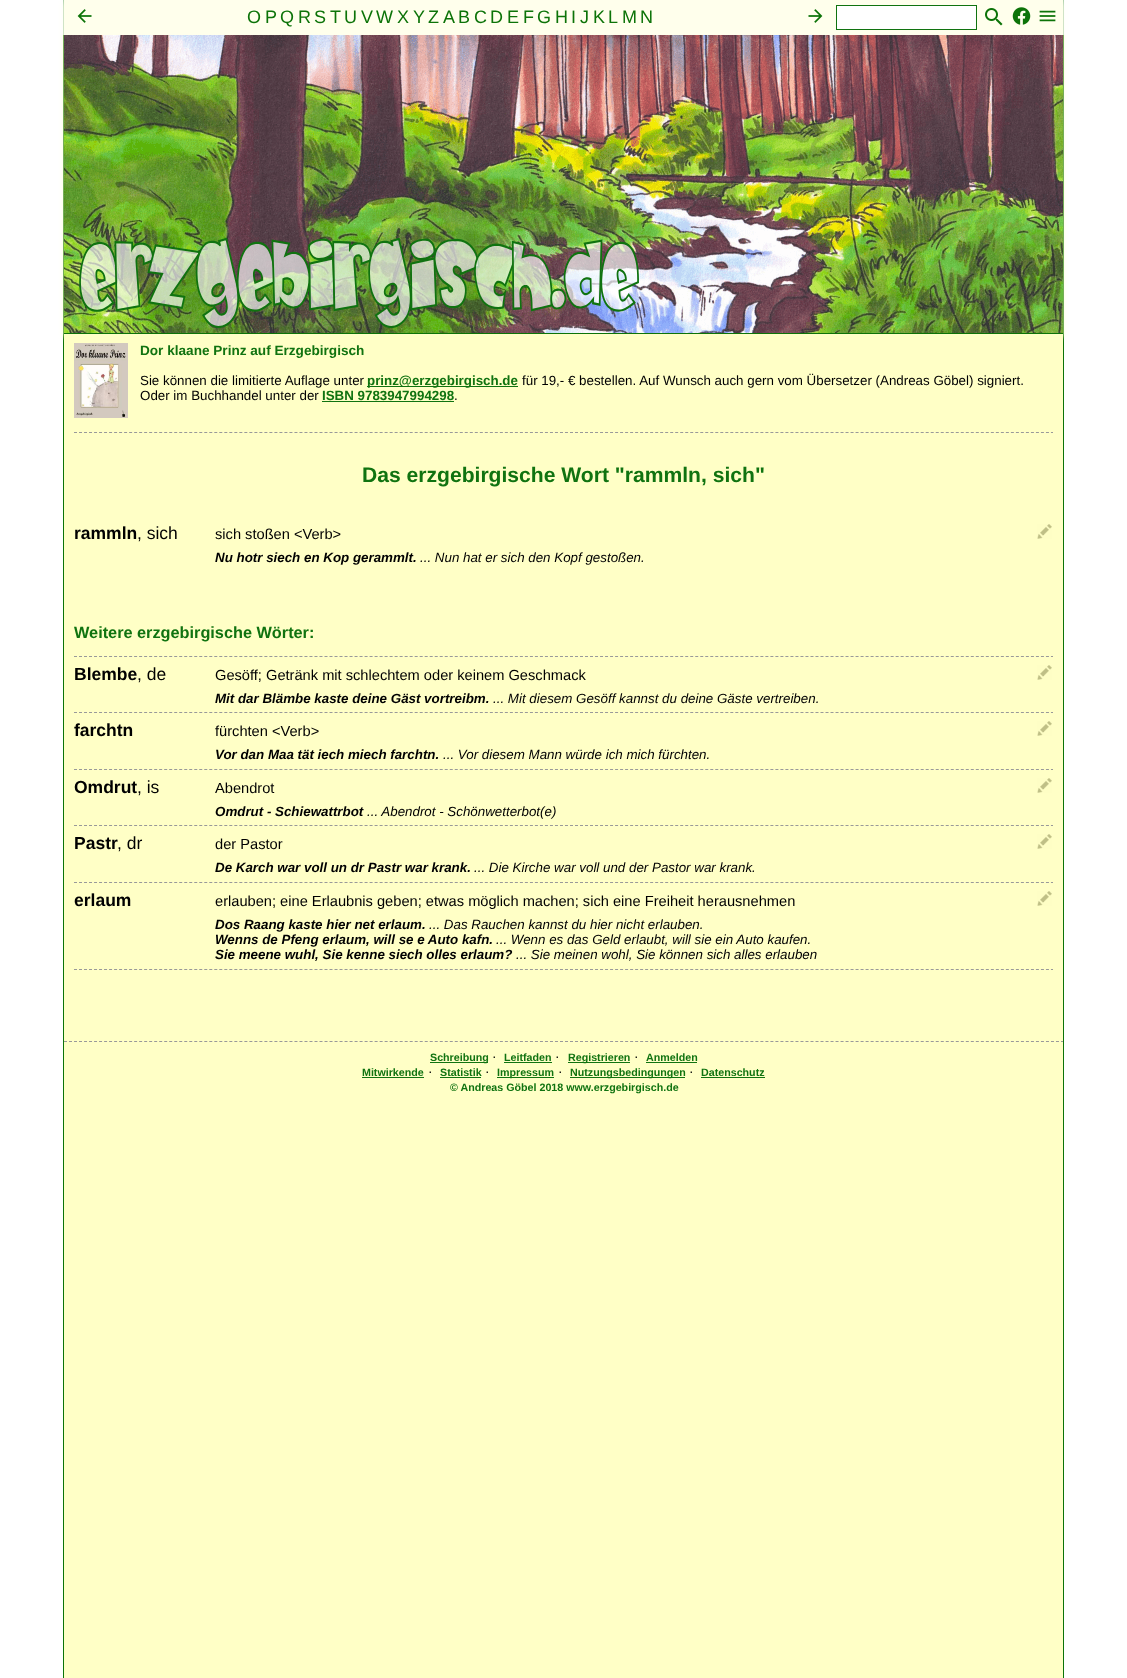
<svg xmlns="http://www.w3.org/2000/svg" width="1127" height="1678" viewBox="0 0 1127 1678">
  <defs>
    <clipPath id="clip1"><path d="M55 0H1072V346H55ZM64 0H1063V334H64Z" clip-rule="evenodd"/></clipPath>
    <filter id="blur1" x="-50%" y="-200%" width="200%" height="500%"><feGaussianBlur stdDeviation="2.5"/></filter>
  </defs>
  <rect width="100%" height="100%" fill="#ffffff"/>
  <rect x="64" y="0" width="999" height="1678" fill="#ffffc6"/>
  <rect x="1063" y="0" width="1" height="1678" fill="#0c7308"/>
  <rect x="63" y="0" width="1" height="1678" fill="#0c7308"/>
  <image x="74" y="343" width="54" height="75" href="img8.png"/>
  <g clip-path="url(#clip1)">
    <rect x="64" y="3" width="999" height="334" fill="#ffffc6" filter="url(#blur1)"/>
  </g>
  <rect x="60" y="0" width="1007" height="35" fill="#ffffff" fill-opacity="0.66"/>
  <image x="77" y="9" width="15" height="14" href="img1.png"/>
  <text x="247" y="23" font-family="Liberation Sans" font-size="18" fill="#0c7308">O</text>
  <text x="265" y="23" font-family="Liberation Sans" font-size="18" fill="#0c7308">P</text>
  <text x="280" y="23" font-family="Liberation Sans" font-size="18" fill="#0c7308">Q</text>
  <text x="298" y="23" font-family="Liberation Sans" font-size="18" fill="#0c7308">R</text>
  <text x="314" y="23" font-family="Liberation Sans" font-size="18" fill="#0c7308">S</text>
  <text x="330" y="23" font-family="Liberation Sans" font-size="18" fill="#0c7308">T</text>
  <text x="344" y="23" font-family="Liberation Sans" font-size="18" fill="#0c7308">U</text>
  <text x="361" y="23" font-family="Liberation Sans" font-size="18" fill="#0c7308">V</text>
  <text x="376" y="23" font-family="Liberation Sans" font-size="18" fill="#0c7308">W</text>
  <text x="397" y="23" font-family="Liberation Sans" font-size="18" fill="#0c7308">X</text>
  <text x="413" y="23" font-family="Liberation Sans" font-size="18" fill="#0c7308">Y</text>
  <text x="428" y="23" font-family="Liberation Sans" font-size="18" fill="#0c7308">Z</text>
  <text x="443" y="23" font-family="Liberation Sans" font-size="18" fill="#0c7308">A</text>
  <text x="458" y="23" font-family="Liberation Sans" font-size="18" fill="#0c7308">B</text>
  <text x="474" y="23" font-family="Liberation Sans" font-size="18" fill="#0c7308">C</text>
  <text x="490" y="23" font-family="Liberation Sans" font-size="18" fill="#0c7308">D</text>
  <text x="507" y="23" font-family="Liberation Sans" font-size="18" fill="#0c7308">E</text>
  <text x="523" y="23" font-family="Liberation Sans" font-size="18" fill="#0c7308">F</text>
  <text x="537" y="23" font-family="Liberation Sans" font-size="18" fill="#0c7308">G</text>
  <text x="555" y="23" font-family="Liberation Sans" font-size="18" fill="#0c7308">H</text>
  <text x="571" y="23" font-family="Liberation Sans" font-size="18" fill="#0c7308">I</text>
  <text x="580" y="23" font-family="Liberation Sans" font-size="18" fill="#0c7308">J</text>
  <text x="593" y="23" font-family="Liberation Sans" font-size="18" fill="#0c7308">K</text>
  <text x="608" y="23" font-family="Liberation Sans" font-size="18" fill="#0c7308">L</text>
  <text x="622" y="23" font-family="Liberation Sans" font-size="18" fill="#0c7308">M</text>
  <text x="640" y="23" font-family="Liberation Sans" font-size="18" fill="#0c7308">N</text>
  <image x="808" y="9" width="15" height="14" href="img2.png"/>
  <rect x="836.5" y="5.5" width="140" height="24" fill="#ffffff" stroke="#107310"/>
  <image x="985" y="8" width="18" height="18" href="img3.png"/>
  <image x="1012" y="7" width="19" height="18" href="img4.png"/>
  <image x="1039" y="10" width="17" height="12" href="img5.png"/>
  <image x="64" y="35" width="999" height="298" href="img6.png"/>
  <rect x="64" y="333" width="999" height="1" fill="#0c7308"/>
  <image x="79" y="238" width="560" height="90" href="img7.png"/>
  <text x="140" y="355" font-family="Liberation Sans" font-size="13.6" font-weight="bold" fill="#107310">Dor klaane Prinz auf Erzgebirgisch</text>
  <text x="140" y="385" font-family="Liberation Sans" font-size="13.35" fill="#000000">Sie können die limitierte Auflage unter</text>
  <rect x="367" y="386" width="151" height="1" fill="#107310"/>
  <text x="367" y="385" font-family="Liberation Sans" font-size="13.35" font-weight="bold" fill="#107310">prinz@erzgebirgisch.de</text>
  <text x="522" y="385" font-family="Liberation Sans" font-size="13.35" fill="#000000">für 19,- € bestellen. Auf Wunsch auch gern vom Übersetzer (Andreas Göbel) signiert.</text>
  <text x="140" y="400" font-family="Liberation Sans" font-size="13.35" fill="#000000">Oder im Buchhandel unter der</text>
  <text x="322" y="400" font-family="Liberation Sans" font-size="13.35" font-weight="bold" fill="#107310">ISBN 9783947994298</text>
  <text x="454" y="400" font-family="Liberation Sans" font-size="13.35" fill="#000000">.</text>
  <rect x="322" y="401" width="132" height="1" fill="#107310"/>
  <path d="M74 432.5H1053" fill="none" stroke="#999999" stroke-dasharray="3 2.01"/>
  <text x="362" y="482" font-family="Liberation Sans" font-size="21.1" font-weight="bold" fill="#107310">Das erzgebirgische Wort "rammln, sich"</text>
  <text x="74" y="539" font-family="Liberation Sans" font-size="17.5" font-weight="bold" fill="#000000">rammln</text>
  <text x="137" y="539" font-family="Liberation Sans" font-size="17.5" fill="#000000">, sich</text>
  <text x="215" y="539" font-family="Liberation Sans" font-size="14.65" fill="#000000">sich stoßen &lt;Verb&gt;</text>
  <image x="1037" y="524" width="15" height="15" href="img9.png"/>
  <text x="215" y="562" font-family="Liberation Sans" font-size="13.35" font-weight="bold" font-style="italic" fill="#000000">Nu hotr siech en Kop gerammlt.</text>
  <text x="420" y="562" font-family="Liberation Sans" font-size="13.35" font-style="italic" fill="#000000">... Nun hat er sich den Kopf gestoßen.</text>
  <text x="74" y="638" font-family="Liberation Sans" font-size="16.3" font-weight="bold" fill="#107310">Weitere erzgebirgische Wörter:</text>
  <path d="M74 656.5H1053" fill="none" stroke="#999999" stroke-dasharray="3 2.01"/>
  <text x="74" y="680" font-family="Liberation Sans" font-size="17.5" font-weight="bold" fill="#000000">Blembe</text>
  <text x="137" y="680" font-family="Liberation Sans" font-size="17.5" fill="#000000">, de</text>
  <text x="215" y="680" font-family="Liberation Sans" font-size="14.65" fill="#000000">Gesöff; Getränk mit schlechtem oder keinem Geschmack</text>
  <image x="1037" y="665" width="15" height="15" href="img9.png"/>
  <text x="215" y="703" font-family="Liberation Sans" font-size="13.35" font-weight="bold" font-style="italic" fill="#000000">Mit dar Blämbe kaste deine Gäst vortreibm.</text>
  <text x="493" y="703" font-family="Liberation Sans" font-size="13.35" font-style="italic" fill="#000000">... Mit diesem Gesöff kannst du deine Gäste vertreiben.</text>
  <path d="M74 712.5H1053" fill="none" stroke="#999999" stroke-dasharray="3 2.01"/>
  <text x="74" y="736" font-family="Liberation Sans" font-size="17.5" font-weight="bold" fill="#000000">farchtn</text>
  <text x="215" y="736" font-family="Liberation Sans" font-size="14.65" fill="#000000">fürchten &lt;Verb&gt;</text>
  <image x="1037" y="721" width="15" height="15" href="img9.png"/>
  <text x="215" y="759" font-family="Liberation Sans" font-size="13.35" font-weight="bold" font-style="italic" fill="#000000">Vor dan Maa tät iech miech farchtn.</text>
  <text x="443" y="759" font-family="Liberation Sans" font-size="13.35" font-style="italic" fill="#000000">... Vor diesem Mann würde ich mich fürchten.</text>
  <path d="M74 769.5H1053" fill="none" stroke="#999999" stroke-dasharray="3 2.01"/>
  <text x="74" y="793" font-family="Liberation Sans" font-size="17.5" font-weight="bold" fill="#000000">Omdrut</text>
  <text x="137" y="793" font-family="Liberation Sans" font-size="17.5" fill="#000000">, is</text>
  <text x="215" y="793" font-family="Liberation Sans" font-size="14.65" fill="#000000">Abendrot</text>
  <image x="1037" y="778" width="15" height="15" href="img9.png"/>
  <text x="215" y="816" font-family="Liberation Sans" font-size="13.35" font-weight="bold" font-style="italic" fill="#000000">Omdrut - Schiewattrbot</text>
  <text x="367" y="816" font-family="Liberation Sans" font-size="13.35" font-style="italic" fill="#000000">... Abendrot - Schönwetterbot(e)</text>
  <path d="M74 825.5H1053" fill="none" stroke="#999999" stroke-dasharray="3 2.01"/>
  <text x="74" y="849" font-family="Liberation Sans" font-size="17.5" font-weight="bold" fill="#000000">Pastr</text>
  <text x="117" y="849" font-family="Liberation Sans" font-size="17.5" fill="#000000">, dr</text>
  <text x="215" y="849" font-family="Liberation Sans" font-size="14.65" fill="#000000">der Pastor</text>
  <image x="1037" y="834" width="15" height="15" href="img9.png"/>
  <text x="215" y="872" font-family="Liberation Sans" font-size="13.35" font-weight="bold" font-style="italic" fill="#000000">De Karch war voll un dr Pastr war krank.</text>
  <text x="474" y="872" font-family="Liberation Sans" font-size="13.35" font-style="italic" fill="#000000">... Die Kirche war voll und der Pastor war krank.</text>
  <path d="M74 882.5H1053" fill="none" stroke="#999999" stroke-dasharray="3 2.01"/>
  <text x="74" y="906" font-family="Liberation Sans" font-size="17.5" font-weight="bold" fill="#000000">erlaum</text>
  <text x="215" y="906" font-family="Liberation Sans" font-size="14.65" fill="#000000">erlauben; eine Erlaubnis geben; etwas möglich machen; sich eine Freiheit herausnehmen</text>
  <image x="1037" y="891" width="15" height="15" href="img9.png"/>
  <text x="215" y="929" font-family="Liberation Sans" font-size="13.35" font-weight="bold" font-style="italic" fill="#000000">Dos Raang kaste hier net erlaum.</text>
  <text x="429" y="929" font-family="Liberation Sans" font-size="13.35" font-style="italic" fill="#000000">... Das Rauchen kannst du hier nicht erlauben.</text>
  <text x="215" y="944" font-family="Liberation Sans" font-size="13.35" font-weight="bold" font-style="italic" fill="#000000">Wenns de Pfeng erlaum, will se e Auto kafn.</text>
  <text x="496" y="944" font-family="Liberation Sans" font-size="13.35" font-style="italic" fill="#000000">... Wenn es das Geld erlaubt, will sie ein Auto kaufen.</text>
  <text x="215" y="959" font-family="Liberation Sans" font-size="13.35" font-weight="bold" font-style="italic" fill="#000000">Sie meene wuhl, Sie kenne siech olles erlaum?</text>
  <text x="516" y="959" font-family="Liberation Sans" font-size="13.35" font-style="italic" fill="#000000">... Sie meinen wohl, Sie können sich alles erlauben</text>
  <path d="M74 969.5H1053" fill="none" stroke="#999999" stroke-dasharray="3 2.01"/>
  <path d="M64 1041.5H1063" fill="none" stroke="#999999" stroke-dasharray="3 2.01"/>
  <rect x="430" y="1062" width="58" height="1" fill="#107310"/>
  <text x="430" y="1061" font-family="Liberation Sans" font-size="10.7" font-weight="bold" fill="#107310">Schreibung</text>
  <text x="492" y="1061" font-family="Liberation Sans" font-size="13.6" fill="#000000">·</text>
  <text x="504" y="1061" font-family="Liberation Sans" font-size="10.7" font-weight="bold" fill="#107310">Leitfaden</text>
  <rect x="504" y="1062" width="48" height="1" fill="#107310"/>
  <text x="555" y="1061" font-family="Liberation Sans" font-size="13.6" fill="#000000">·</text>
  <rect x="568" y="1062" width="62" height="1" fill="#107310"/>
  <text x="568" y="1061" font-family="Liberation Sans" font-size="10.7" font-weight="bold" fill="#107310">Registrieren</text>
  <text x="634" y="1061" font-family="Liberation Sans" font-size="13.6" fill="#000000">·</text>
  <text x="646" y="1061" font-family="Liberation Sans" font-size="10.7" font-weight="bold" fill="#107310">Anmelden</text>
  <rect x="646" y="1062" width="51" height="1" fill="#107310"/>
  <text x="362" y="1076" font-family="Liberation Sans" font-size="10.7" font-weight="bold" fill="#107310">Mitwirkende</text>
  <rect x="362" y="1077" width="62" height="1" fill="#107310"/>
  <text x="428" y="1076" font-family="Liberation Sans" font-size="13.6" fill="#000000">·</text>
  <text x="440" y="1076" font-family="Liberation Sans" font-size="10.7" font-weight="bold" fill="#107310">Statistik</text>
  <rect x="440" y="1077" width="41" height="1" fill="#107310"/>
  <text x="485" y="1076" font-family="Liberation Sans" font-size="13.6" fill="#000000">·</text>
  <rect x="497" y="1077" width="57" height="1" fill="#107310"/>
  <text x="497" y="1076" font-family="Liberation Sans" font-size="10.7" font-weight="bold" fill="#107310">Impressum</text>
  <text x="558" y="1076" font-family="Liberation Sans" font-size="13.6" fill="#000000">·</text>
  <rect x="570" y="1077" width="115" height="1" fill="#107310"/>
  <text x="570" y="1076" font-family="Liberation Sans" font-size="10.7" font-weight="bold" fill="#107310">Nutzungsbedingungen</text>
  <text x="689" y="1076" font-family="Liberation Sans" font-size="13.6" fill="#000000">·</text>
  <text x="701" y="1076" font-family="Liberation Sans" font-size="10.7" font-weight="bold" fill="#107310">Datenschutz</text>
  <rect x="701" y="1077" width="64" height="1" fill="#107310"/>
  <text x="450" y="1091" font-family="Liberation Sans" font-size="10.7" font-weight="bold" fill="#107310">© Andreas Göbel 2018 www.erzgebirgisch.de</text>
</svg>
